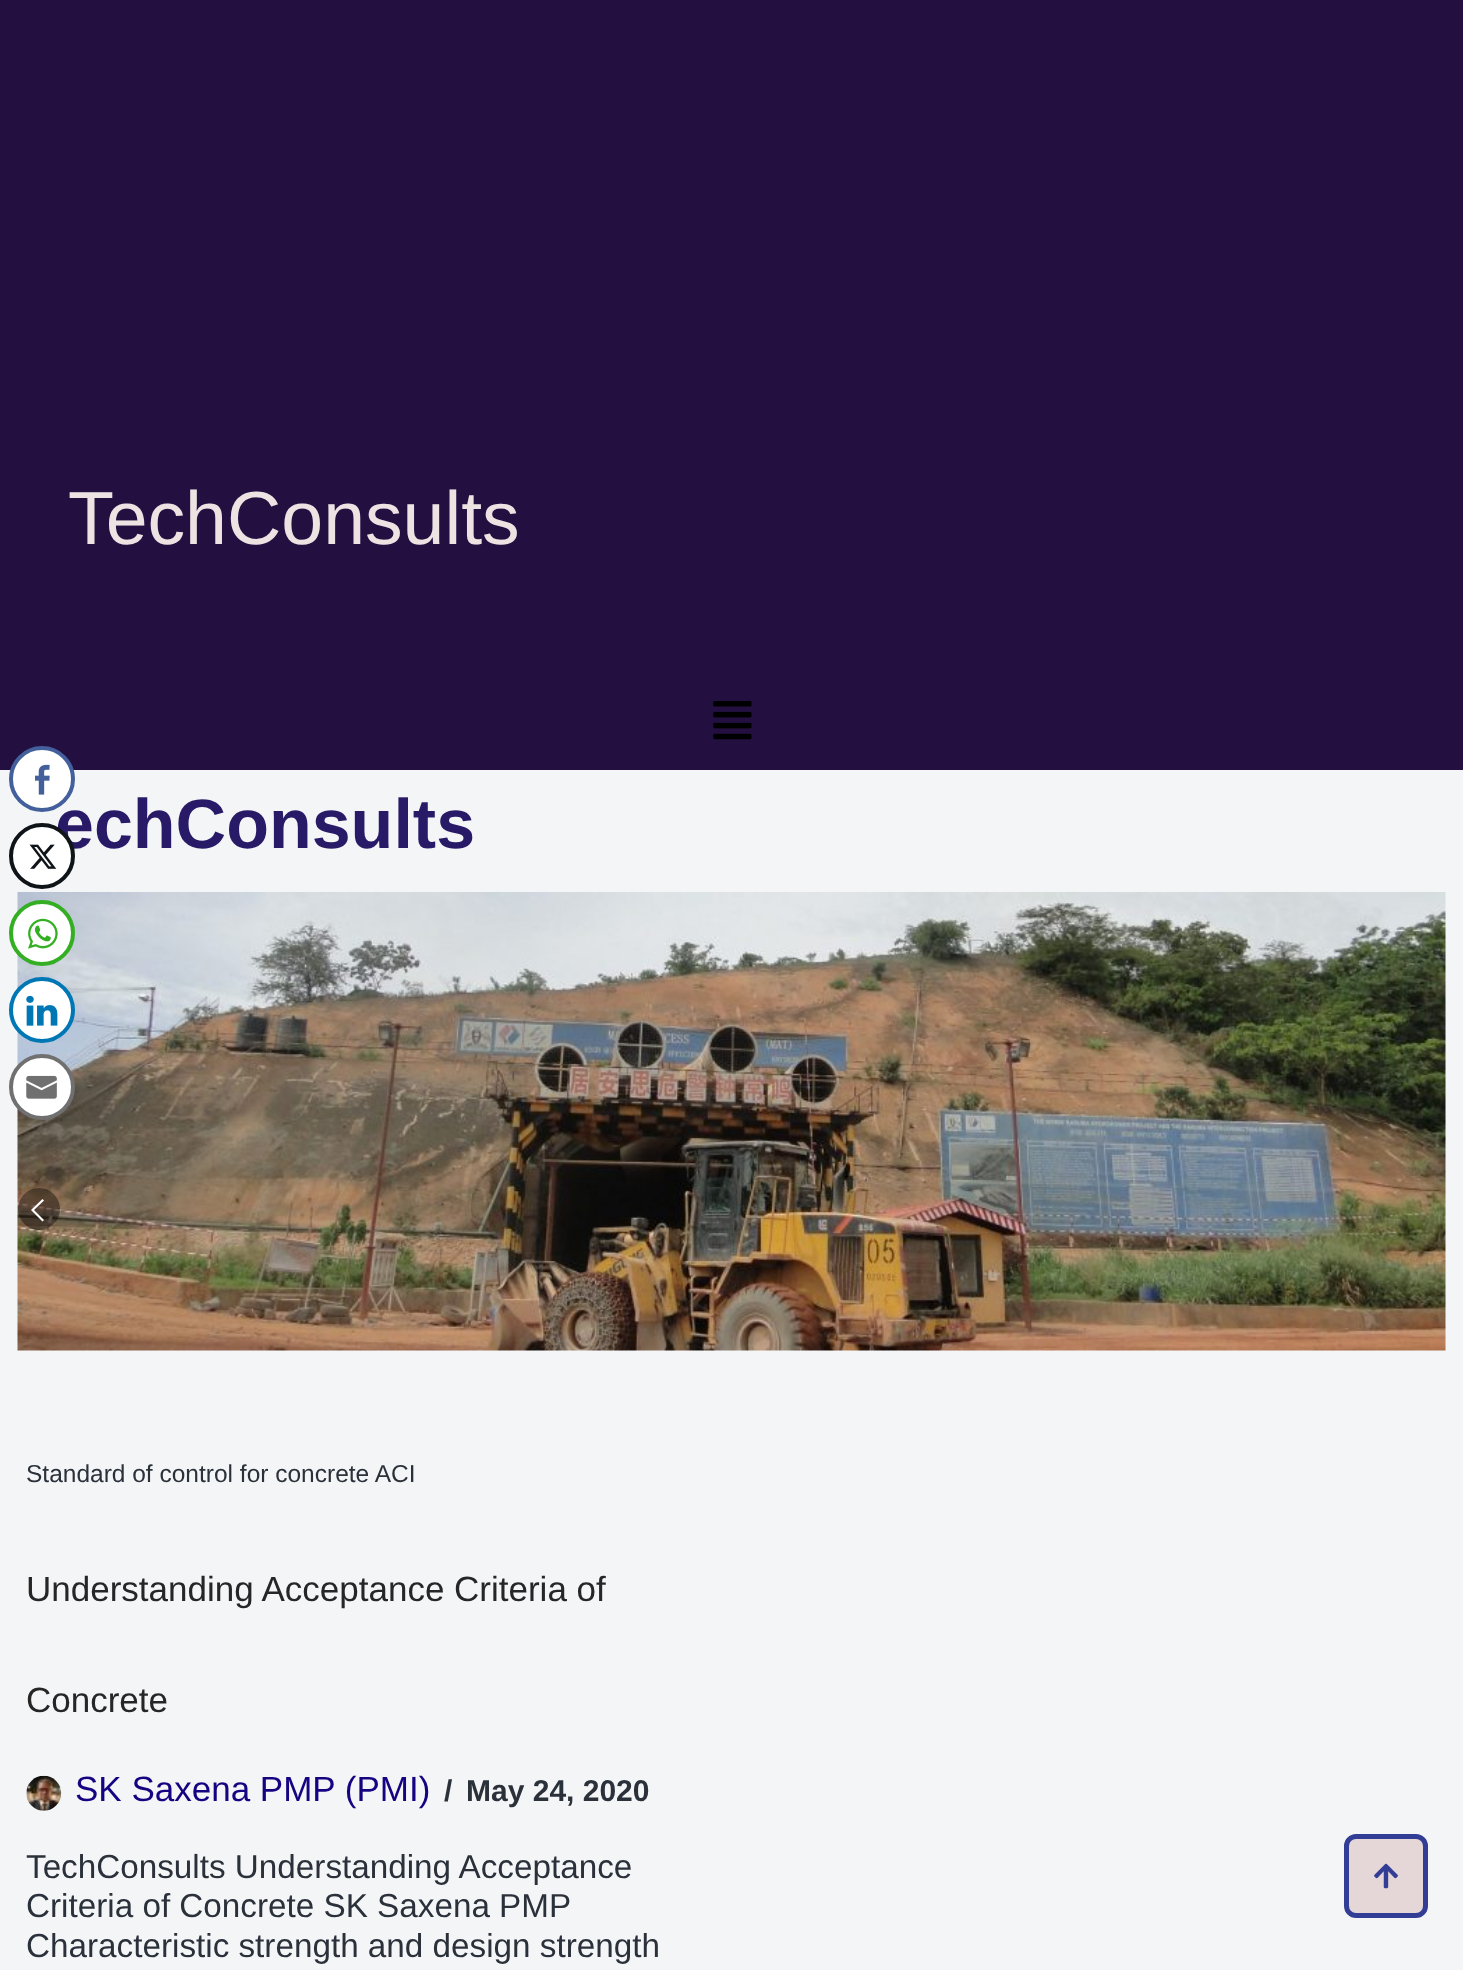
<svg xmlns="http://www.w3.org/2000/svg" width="1463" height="1970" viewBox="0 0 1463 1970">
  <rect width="100%" height="100%" fill="#f4f5f7"/>
  <rect x="0" y="0" width="1463" height="770" fill="#231041"/>
  <text x="68" y="544" font-family="Liberation Sans" font-size="75.25" fill="#eee3e3">TechConsults</text>
  <image x="713" y="701" width="39" height="39" href="img1.png"/>
  <text x="55" y="848" font-family="Liberation Sans" font-size="70" font-weight="bold" fill="#291a68">echConsults</text>
  <image x="17" y="892" width="1429" height="459" href="img2.png"/>
  <text x="26" y="1482" font-family="Liberation Sans" font-size="24.5" fill="#2b313a">Standard of control for concrete ACI</text>
  <text x="26" y="1601" font-family="Liberation Sans" font-size="35" fill="#272626">Understanding Acceptance Criteria of</text>
  <text x="26" y="1712" font-family="Liberation Sans" font-size="35" fill="#272626">Concrete</text>
  <image x="26" y="1775" width="36" height="36" href="img3.png"/>
  <text x="75" y="1801" font-family="Liberation Sans" font-size="35" fill="#140481">SK Saxena PMP (PMI)</text>
  <text x="444" y="1801" font-family="Liberation Sans" font-size="30" font-weight="bold" fill="#2b313a">/</text>
  <text x="466" y="1801" font-family="Liberation Sans" font-size="30" font-weight="bold" fill="#2b313a">May 24, 2020</text>
  <text x="26" y="1878" font-family="Liberation Sans" font-size="33.25" fill="#2b313a">TechConsults Understanding Acceptance</text>
  <text x="26" y="1917" font-family="Liberation Sans" font-size="33.25" fill="#2b313a">Criteria of Concrete SK Saxena PMP</text>
  <text x="26" y="1957" font-family="Liberation Sans" font-size="33.25" fill="#2b313a">Characteristic strength and design strength</text>
  <rect x="1346.5" y="1836.5" width="79" height="79" rx="9.5" fill="#e5d7d7" stroke="#323e95" stroke-width="5"/>
  <image x="1374" y="1863" width="24" height="26" href="img4.png"/>
  <circle cx="42" cy="779" r="31" fill="#ffffff" stroke="#43609c" stroke-width="4"/>
  <image x="35" y="764" width="15" height="31" href="img5.png"/>
  <circle cx="42" cy="856" r="31" fill="#ffffff" stroke="#0f1419" stroke-width="4"/>
  <image x="29" y="844" width="28" height="25" href="img6.png"/>
  <circle cx="42" cy="933" r="31" fill="#ffffff" stroke="#34af23" stroke-width="4"/>
  <image x="28" y="918" width="30" height="31" href="img7.png"/>
  <circle cx="42" cy="1010" r="31" fill="#ffffff" stroke="#0077b5" stroke-width="4"/>
  <image x="26" y="995" width="32" height="31" href="img8.png"/>
  <circle cx="42" cy="1087" r="31" fill="#ffffff" stroke="#717070" stroke-width="4"/>
  <image x="26" y="1075" width="31" height="24" href="img9.png"/>
  <circle cx="39" cy="1209" r="21" fill="#000000" fill-opacity="0.4"/>
  <path d="M44 1200.5L42.5 1199L31 1210L42.5 1221.5L44 1220L34 1210" fill="#ffffff"/>
</svg>
